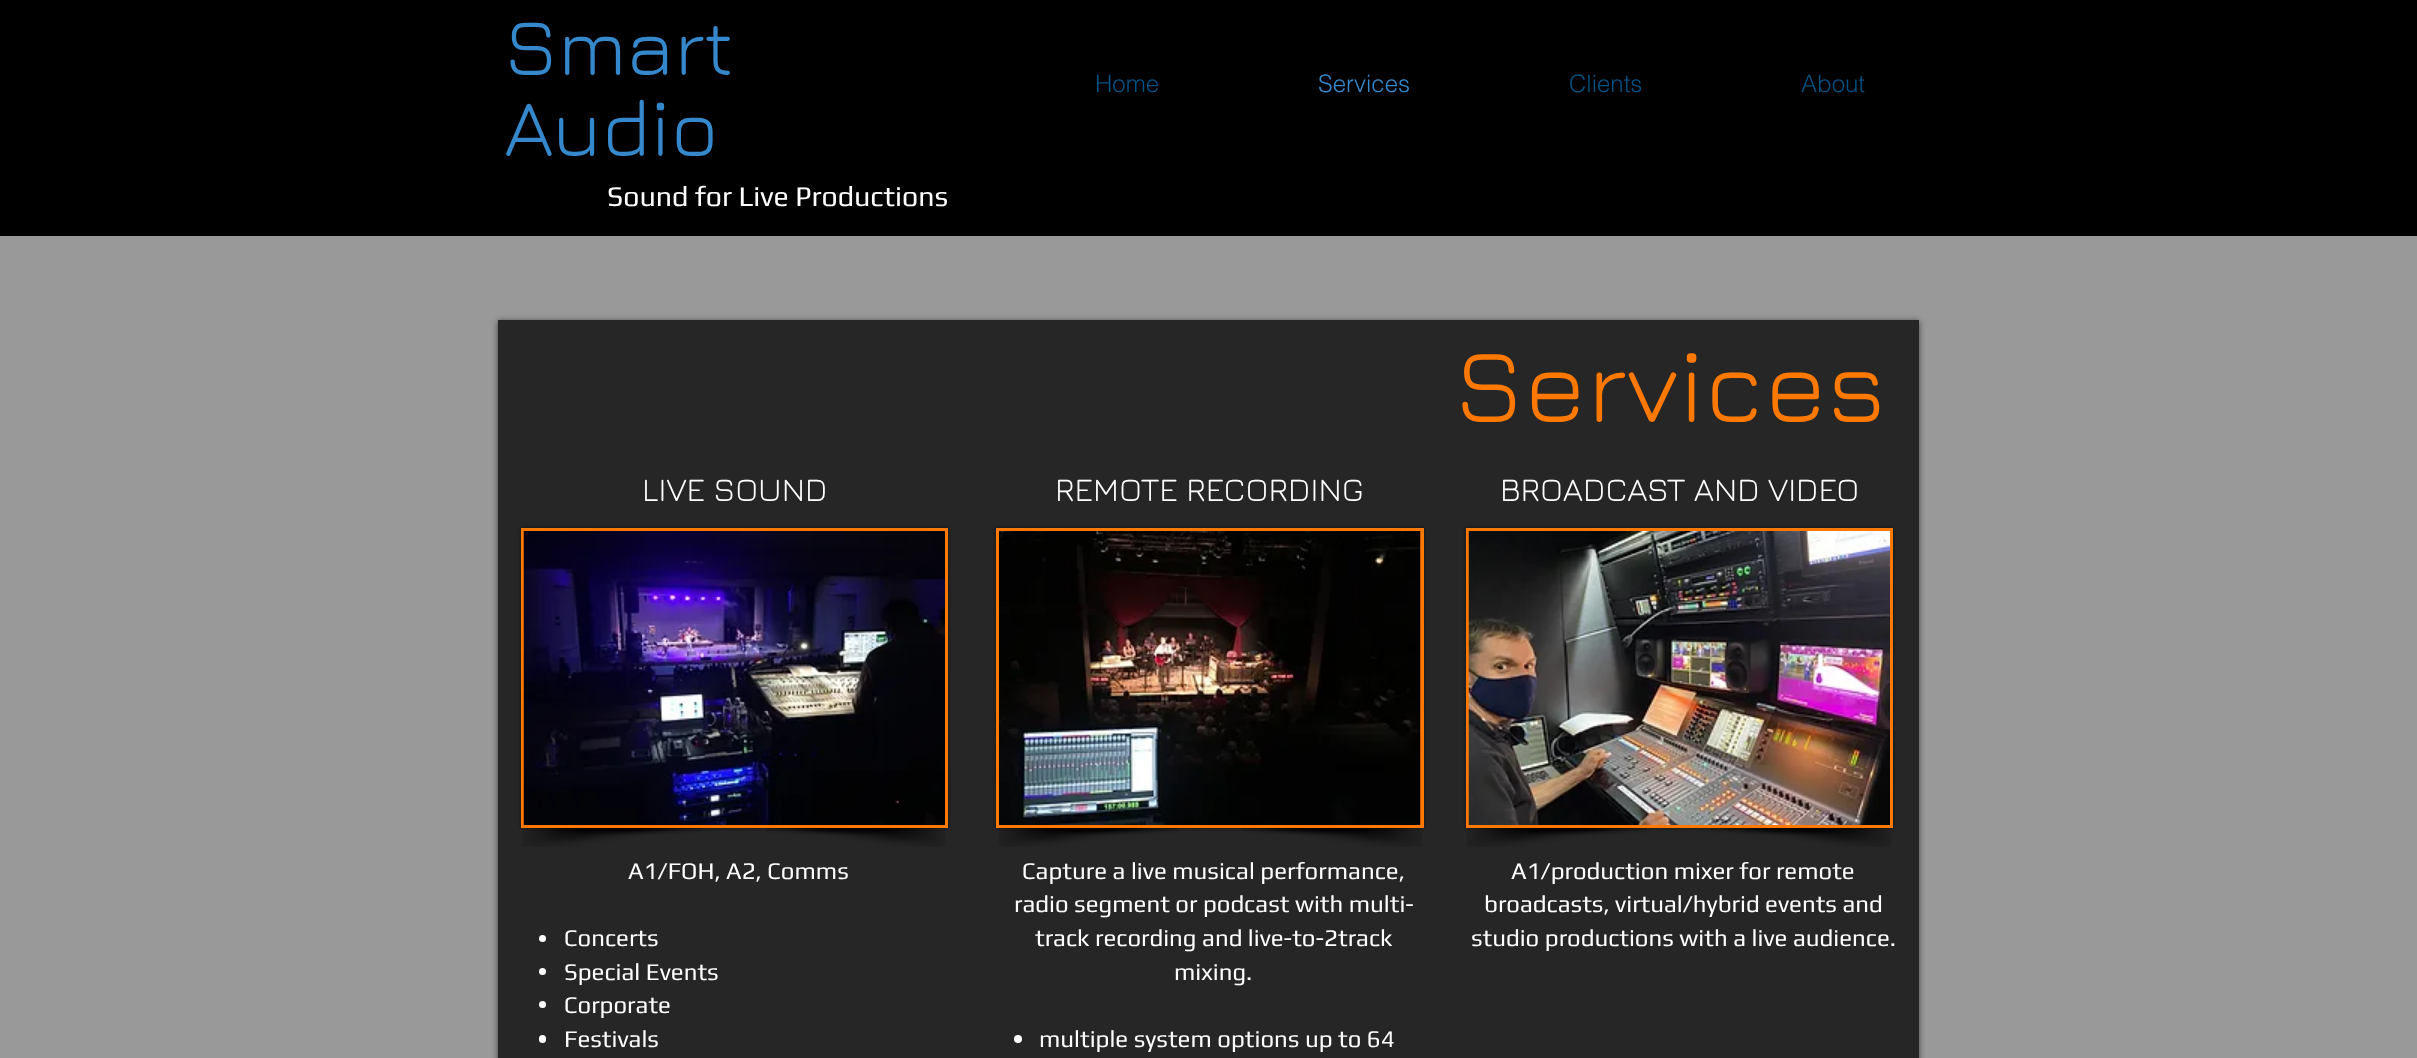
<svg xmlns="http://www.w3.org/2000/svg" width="2417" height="1058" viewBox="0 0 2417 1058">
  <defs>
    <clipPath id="clip1"><path d="M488 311H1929V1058H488ZM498 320H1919V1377H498Z" clip-rule="evenodd"/></clipPath>
    <filter id="blur1" x="-50%" y="-200%" width="200%" height="500%"><feGaussianBlur stdDeviation="3"/></filter>
    <filter id="blur2" x="-50%" y="-200%" width="200%" height="500%"><feGaussianBlur stdDeviation="2"/></filter>
  </defs>
  <rect width="100%" height="100%" fill="#999999"/>
  <rect x="0" y="0" width="2417" height="236" fill="#000000"/>
  <text x="504" y="75" font-family="Jura" font-size="81" fill="#3588cc">Smart</text>
  <text x="504" y="156" font-family="Jura" font-size="81" fill="#3588cc">Audio</text>
  <text x="607" y="206" font-family="Play" font-size="28.5" fill="#ffffff">Sound for Live Productions</text>
  <text x="1095" y="92" font-family="helvetica" font-size="24" font-weight="300" fill="#045184">Home</text>
  <text x="1318" y="92" font-family="helvetica" font-size="24" font-weight="300" fill="#3588cc">Services</text>
  <text x="1569" y="92" font-family="helvetica" font-size="24" font-weight="300" fill="#045184">Clients</text>
  <text x="1801" y="92" font-family="helvetica" font-size="24" font-weight="300" fill="#045184">About</text>
  <g clip-path="url(#clip1)">
    <rect x="498" y="321" width="1421" height="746" fill="#000000" fill-opacity="0.6" filter="url(#blur1)"/>
  </g>
  <rect x="498" y="320" width="1421" height="738" fill="#000000" fill-opacity="0.75"/>
  <text x="1454" y="422" font-family="Jura" font-size="105" fill="#ff7900">Services</text>
  <text x="642" y="501" font-family="Jura" font-size="33" fill="#ffffff">LIVE SOUND</text>
  <text x="1055" y="501" font-family="Jura" font-size="33" fill="#ffffff">REMOTE RECORDING</text>
  <text x="1500" y="501" font-family="Jura" font-size="33" fill="#ffffff">BROADCAST AND VIDEO</text>
  <rect x="521" y="528" width="427" height="300" fill="#000000" fill-opacity="0.5" filter="url(#blur2)"/>
  <rect x="521" y="528" width="427" height="300" fill="#ff7900"/>
  <image x="523" y="531" width="422" height="294" href="img1.png"/>
  <image x="522" y="828" width="180" height="19" href="img2.png"/>
  <image x="766" y="828" width="180" height="19" href="img3.png"/>
  <rect x="996" y="528" width="428" height="300" fill="#000000" fill-opacity="0.5" filter="url(#blur2)"/>
  <rect x="996" y="528" width="428" height="300" fill="#ff7900"/>
  <image x="999" y="531" width="422" height="294" href="img4.png"/>
  <image x="998" y="828" width="180" height="19" href="img5.png"/>
  <image x="1242" y="828" width="180" height="19" href="img6.png"/>
  <rect x="1466" y="528" width="427" height="300" fill="#000000" fill-opacity="0.5" filter="url(#blur2)"/>
  <rect x="1466" y="528" width="427" height="300" fill="#ff7900"/>
  <image x="1468" y="531" width="422" height="294" href="img7.png"/>
  <image x="1467" y="828" width="180" height="19" href="img8.png"/>
  <image x="1711" y="828" width="180" height="19" href="img3.png"/>
  <text x="628" y="879" font-family="Play" font-size="24" fill="#ffffff">A1/FOH, A2, Comms</text>
  <circle cx="542.5" cy="938.5" r="3.5" fill="#ffffff"/>
  <text x="564" y="946" font-family="Play" font-size="24" fill="#ffffff">Concerts</text>
  <circle cx="542.5" cy="971.5" r="3.5" fill="#ffffff"/>
  <text x="564" y="980" font-family="Play" font-size="24" fill="#ffffff">Special Events</text>
  <circle cx="542.5" cy="1004.5" r="3.5" fill="#ffffff"/>
  <text x="564" y="1013" font-family="Play" font-size="24" fill="#ffffff">Corporate</text>
  <rect x="539" y="1035" width="7" height="8" rx="3.5" fill="#ffffff"/>
  <text x="564" y="1047" font-family="Play" font-size="24" fill="#ffffff">Festivals</text>
  <text x="1022" y="879" font-family="Play" font-size="24" fill="#ffffff">Capture a live musical performance,</text>
  <text x="1014" y="912" font-family="Play" font-size="24" fill="#ffffff">radio segment or podcast with multi-</text>
  <text x="1035" y="946" font-family="Play" font-size="24" fill="#ffffff">track recording and live-to-2track</text>
  <text x="1174" y="980" font-family="Play" font-size="24" fill="#ffffff">mixing.</text>
  <circle cx="1018" cy="1039" r="4" fill="#ffffff"/>
  <text x="1039" y="1047" font-family="Play" font-size="24" fill="#ffffff">multiple system options up to 64</text>
  <text x="1511" y="879" font-family="Play" font-size="24" fill="#ffffff">A1/production mixer for remote</text>
  <text x="1484" y="912" font-family="Play" font-size="24" fill="#ffffff">broadcasts, virtual/hybrid events and</text>
  <text x="1471" y="946" font-family="Play" font-size="24" fill="#ffffff">studio productions with a live audience.</text>
</svg>
